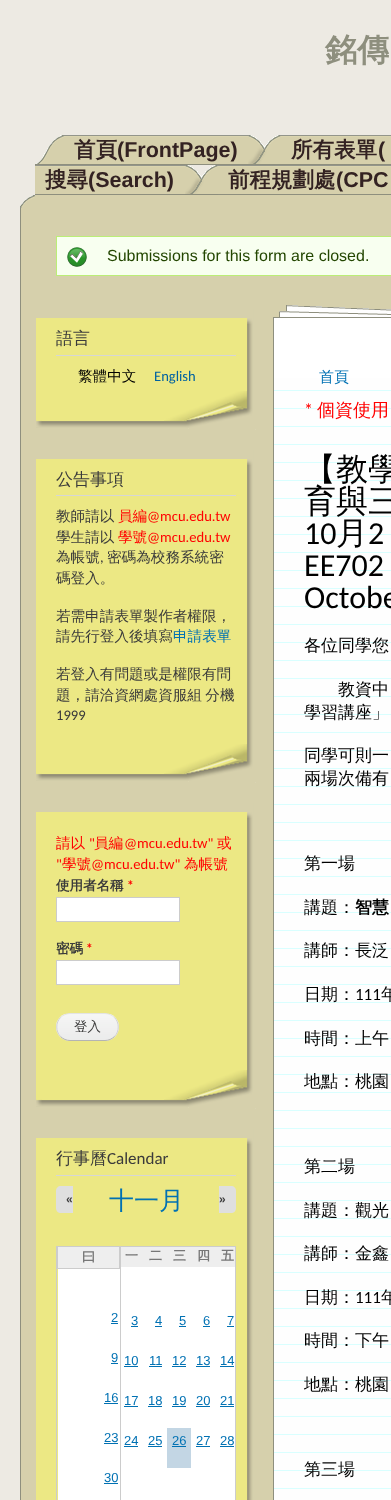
<svg xmlns="http://www.w3.org/2000/svg" width="391" height="1500" viewBox="0 0 391 1500">
  <rect width="100%" height="100%" fill="#edeae3"/>
  <text x="325" y="61" font-family="WenQuanYi Zen Hei" font-size="32" font-weight="bold" fill="#8e8f7e">銘傳</text>
  <image x="36" y="135" width="28" height="29" href="img1.png"/>
  <image x="64" y="135" width="184" height="29" href="img2.png"/>
  <text x="74" y="157" font-family="WenQuanYi Zen Hei" font-size="21.5" font-weight="bold" fill="#332222">首頁</text>
  <text x="117" y="157" font-family="Liberation Sans" font-size="21.5" font-weight="bold" fill="#332222">(FrontPage)</text>
  <image x="248" y="135" width="33" height="29" href="img3.png"/>
  <image x="281" y="135" width="110" height="29" href="img4.png"/>
  <text x="291" y="157" font-family="WenQuanYi Zen Hei" font-size="21.5" font-weight="bold" fill="#332222">所有表單</text>
  <text x="378" y="157" font-family="Liberation Sans" font-size="21.5" font-weight="bold" fill="#332222">(</text>
  <rect x="35" y="164" width="356" height="1" fill="#8e8f7e"/>
  <image x="35" y="165" width="150" height="30" href="img5.png"/>
  <text x="45" y="187" font-family="WenQuanYi Zen Hei" font-size="21.5" font-weight="bold" fill="#332222">搜尋</text>
  <text x="88" y="187" font-family="Liberation Sans" font-size="21.5" font-weight="bold" fill="#332222">(Search)</text>
  <image x="185" y="165" width="33" height="30" href="img6.png"/>
  <image x="218" y="165" width="173" height="30" href="img7.png"/>
  <text x="228" y="187" font-family="WenQuanYi Zen Hei" font-size="21.5" font-weight="bold" fill="#332222">前程規劃處</text>
  <text x="336" y="187" font-family="Liberation Sans" font-size="21.5" font-weight="bold" fill="#332222">(CPC</text>
  <rect x="35" y="195" width="356" height="13" fill="#d6d0ac"/>
  <image x="20" y="195" width="15" height="13" href="img8.png"/>
  <rect x="21" y="208" width="370" height="1292" fill="#d6d0ac"/>
  <rect x="20" y="208" width="1" height="1292" fill="#8e8f7e"/>
  <rect x="57" y="237" width="334" height="38" fill="#f8fff0"/>
  <image x="67" y="247" width="20" height="20" href="img9.png"/>
  <rect x="56.5" y="236.5" width="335" height="39" fill="none" stroke="#bbee77"/>
  <text x="107" y="261" font-family="Liberation Sans" font-size="16" fill="#234600">Submissions for this form are closed.</text>
  <rect x="36" y="318" width="211" height="103" fill="#ece884"/>
  <image x="36" y="421" width="128" height="9" href="img10.png"/>
  <image x="247" y="309" width="9" height="82" href="img11.png"/>
  <image x="36" y="420" width="6" height="7" href="img12.png"/>
  <image x="164" y="391" width="92" height="39" href="img13.png"/>
  <image x="247" y="309" width="6" height="15" href="img14.png"/>
  <rect x="56" y="355" width="180" height="1" fill="#d6d6d6"/>
  <text x="56" y="344" font-family="WenQuanYi Zen Hei" font-size="17" font-weight="500" fill="#3b3b3b">語言</text>
  <text x="78" y="381" font-family="WenQuanYi Zen Hei" font-size="14.6" font-weight="500" fill="#000000">繁體中文</text>
  <text x="154" y="381" font-family="Carlito" font-size="14.6" fill="#0062a0">English</text>
  <rect x="36" y="459" width="211" height="315" fill="#ece884"/>
  <image x="36" y="774" width="128" height="9" href="img10.png"/>
  <image x="247" y="450" width="9" height="294" href="img15.png"/>
  <image x="36" y="773" width="6" height="7" href="img12.png"/>
  <image x="164" y="744" width="92" height="39" href="img13.png"/>
  <image x="247" y="450" width="6" height="15" href="img14.png"/>
  <rect x="56" y="495" width="180" height="1" fill="#d6d6d6"/>
  <text x="56" y="485" font-family="WenQuanYi Zen Hei" font-size="17" font-weight="500" fill="#3b3b3b">公告事項</text>
  <text x="56" y="521" font-family="WenQuanYi Zen Hei" font-size="14.6" font-weight="500" fill="#3b3b3b">教師請以</text>
  <text x="118" y="521" font-family="WenQuanYi Zen Hei" font-size="14.6" font-weight="500" fill="#ff0000">員編</text>
  <text x="147" y="521" font-family="Carlito" font-size="14.6" fill="#ff0000">@mcu.edu.tw</text>
  <text x="56" y="542" font-family="WenQuanYi Zen Hei" font-size="14.6" font-weight="500" fill="#3b3b3b">學生請以</text>
  <text x="118" y="542" font-family="WenQuanYi Zen Hei" font-size="14.6" font-weight="500" fill="#ff0000">學號</text>
  <text x="147" y="542" font-family="Carlito" font-size="14.6" fill="#ff0000">@mcu.edu.tw</text>
  <text x="56" y="562" font-family="WenQuanYi Zen Hei" font-size="14.6" font-weight="500" fill="#3b3b3b">為帳號</text>
  <text x="100" y="562" font-family="Carlito" font-size="14.6" fill="#3b3b3b">,</text>
  <text x="107" y="562" font-family="WenQuanYi Zen Hei" font-size="14.6" font-weight="500" fill="#3b3b3b">密碼為校務系統密</text>
  <text x="56" y="583" font-family="WenQuanYi Zen Hei" font-size="14.6" font-weight="500" fill="#3b3b3b">碼登入。</text>
  <text x="56" y="621" font-family="WenQuanYi Zen Hei" font-size="14.6" font-weight="500" fill="#3b3b3b">若需申請表單製作者權限，</text>
  <text x="56" y="641" font-family="WenQuanYi Zen Hei" font-size="14.6" font-weight="500" fill="#3b3b3b">請先行登入後填寫</text>
  <text x="173" y="641" font-family="WenQuanYi Zen Hei" font-size="14.6" font-weight="500" fill="#0071b3">申請表單</text>
  <text x="56" y="679" font-family="WenQuanYi Zen Hei" font-size="14.6" font-weight="500" fill="#3b3b3b">若登入有問題或是權限有問</text>
  <text x="56" y="700" word-spacing="-1" font-family="WenQuanYi Zen Hei" font-size="14.6" font-weight="500" fill="#3b3b3b">題，請洽資網處資服組 分機</text>
  <text x="56" y="720" font-family="Carlito" font-size="14.6" fill="#3b3b3b">1999</text>
  <rect x="36" y="812" width="211" height="288" fill="#ece884"/>
  <image x="36" y="1100" width="128" height="9" href="img10.png"/>
  <image x="247" y="803" width="9" height="267" href="img16.png"/>
  <image x="36" y="1099" width="6" height="7" href="img12.png"/>
  <image x="164" y="1070" width="92" height="39" href="img13.png"/>
  <image x="247" y="803" width="6" height="15" href="img14.png"/>
  <text x="56" y="848" font-family="WenQuanYi Zen Hei" font-size="14.6" font-weight="500" fill="#ff0000">請以</text>
  <text x="89" y="848" font-family="Carlito" font-size="14.6" fill="#ff0000">"</text>
  <text x="94" y="848" font-family="WenQuanYi Zen Hei" font-size="14.6" font-weight="500" fill="#ff0000">員編</text>
  <text x="124" y="848" font-family="Carlito" font-size="14.6" fill="#ff0000">@mcu.edu.tw"</text>
  <text x="217" y="848" font-family="WenQuanYi Zen Hei" font-size="14.6" font-weight="500" fill="#ff0000">或</text>
  <text x="56" y="869" font-family="Carlito" font-size="14.6" fill="#ff0000">"</text>
  <text x="62" y="869" font-family="WenQuanYi Zen Hei" font-size="14.6" font-weight="500" fill="#ff0000">學號</text>
  <text x="91" y="869" font-family="Carlito" font-size="14.6" fill="#ff0000">@mcu.edu.tw"</text>
  <text x="184" y="869" font-family="WenQuanYi Zen Hei" font-size="14.6" font-weight="500" fill="#ff0000">為帳號</text>
  <text x="56" y="890" font-family="WenQuanYi Zen Hei" font-size="13.5" font-weight="bold" fill="#3b3b3b">使用者名稱</text>
  <text x="127" y="890" font-family="Carlito" font-size="13.5" font-weight="bold" fill="#ff0000">*</text>
  <rect x="56.5" y="897.5" width="123" height="24" fill="#ffffff" stroke="#cccccc"/>
  <text x="56" y="953" font-family="WenQuanYi Zen Hei" font-size="13.5" font-weight="bold" fill="#3b3b3b">密碼</text>
  <text x="86" y="953" font-family="Carlito" font-size="13.5" font-weight="bold" fill="#ff0000">*</text>
  <rect x="56.5" y="960.5" width="123" height="24" fill="#ffffff" stroke="#cccccc"/>
  <image x="56" y="1014" width="63" height="27" href="img17.png"/>
  <path d="M60.5 1017.5C63 1015 66.5 1013.5 70 1013.5H105C108.5 1013.5 112 1015 114.5 1017.5" fill="none" stroke="#e4e4e4"/>
  <path d="M114.5 1017.5C119.5 1022.5 119.5 1031.5 114.5 1036.5" fill="none" stroke="#d2d2d2"/>
  <path d="M114.5 1036.5C112 1039 108.5 1040.5 105 1040.5H70C66.5 1040.5 63 1039 60.5 1036.5" fill="none" stroke="#b4b4b4"/>
  <path d="M60.5 1036.5C55.5 1031.5 55.5 1022.5 60.5 1017.5" fill="none" stroke="#d2d2d2"/>
  <text x="74" y="1031" font-family="WenQuanYi Zen Hei" font-size="13.5" font-weight="500" fill="#3b3b3b">登入</text>
  <rect x="36" y="1138" width="211" height="362" fill="#ece884"/>
  <image x="247" y="1129" width="9" height="371" href="img18.png"/>
  <image x="247" y="1129" width="6" height="15" href="img14.png"/>
  <rect x="56" y="1175" width="180" height="1" fill="#d6d6d6"/>
  <text x="56" y="1164" font-family="WenQuanYi Zen Hei" font-size="17" font-weight="500" fill="#3b3b3b">行事曆</text>
  <text x="107" y="1164" font-family="Carlito" font-size="17" fill="#3b3b3b">Calendar</text>
  <text x="109" y="1209" font-family="WenQuanYi Zen Hei" font-size="25" font-weight="500" fill="#0071b3">十一月</text>
  <path d="M61 1186H73V1213H61C58 1213 56 1211 56 1208V1191C56 1188 58 1186 61 1186Z" fill="#dfdfdf"/>
  <text x="66" y="1203" font-family="Liberation Sans" font-size="12" font-weight="bold" fill="#3b3b3b">«</text>
  <path d="M219 1186H231C234 1186 236 1188 236 1191V1208C236 1211 234 1213 231 1213H219Z" fill="#dfdfdf"/>
  <text x="219" y="1203" font-family="Liberation Sans" font-size="12" font-weight="bold" fill="#3b3b3b">»</text>
  <rect x="235" y="1246" width="1" height="254" fill="#cccccc"/>
  <rect x="57" y="1246" width="178" height="1" fill="#cccccc"/>
  <rect x="119" y="1267" width="116" height="41" fill="#ffffff"/>
  <rect x="119" y="1308" width="116" height="192" fill="#ffffff"/>
  <rect x="120" y="1246" width="1" height="254" fill="#cccccc"/>
  <rect x="56" y="1246" width="1" height="254" fill="#cccccc"/>
  <rect x="58" y="1247" width="61" height="21" fill="#eeeeee"/>
  <rect x="119" y="1246" width="1" height="23" fill="#cccccc"/>
  <rect x="57" y="1268" width="63" height="1" fill="#cccccc"/>
  <rect x="57" y="1246" width="1" height="23" fill="#cccccc"/>
  <text x="82" y="1261" font-family="WenQuanYi Zen Hei" font-size="13" font-weight="bold" fill="#777777">曰</text>
  <rect x="58" y="1269" width="61" height="231" fill="#ffffff"/>
  <text x="111" y="1322" font-family="Liberation Sans" font-size="13" fill="#0071b3">2</text>
  <rect x="111" y="1323" width="7" height="1" fill="#0071b3"/>
  <text x="111" y="1362" font-family="Liberation Sans" font-size="13" fill="#0071b3">9</text>
  <rect x="111" y="1363" width="7" height="1" fill="#0071b3"/>
  <text x="104" y="1402" font-family="Liberation Sans" font-size="13" fill="#0071b3">16</text>
  <rect x="104" y="1403" width="14" height="1" fill="#0071b3"/>
  <text x="104" y="1442" font-family="Liberation Sans" font-size="13" fill="#0071b3">23</text>
  <rect x="104" y="1443" width="14" height="1" fill="#0071b3"/>
  <text x="104" y="1482" font-family="Liberation Sans" font-size="13" fill="#0071b3">30</text>
  <rect x="104" y="1483" width="14" height="1" fill="#0071b3"/>
  <rect x="121" y="1247" width="114" height="20" fill="#eeeeee"/>
  <text x="125" y="1260" font-family="WenQuanYi Zen Hei" font-size="13" font-weight="bold" fill="#777777">一</text>
  <text x="149" y="1260" font-family="WenQuanYi Zen Hei" font-size="13" font-weight="bold" fill="#777777">二</text>
  <text x="173" y="1260" font-family="WenQuanYi Zen Hei" font-size="13" font-weight="bold" fill="#777777">三</text>
  <text x="197" y="1260" font-family="WenQuanYi Zen Hei" font-size="13" font-weight="bold" fill="#777777">四</text>
  <text x="221" y="1260" font-family="WenQuanYi Zen Hei" font-size="13" font-weight="bold" fill="#777777">五</text>
  <text x="131" y="1325" font-family="Liberation Sans" font-size="13" fill="#0071b3">3</text>
  <rect x="131" y="1326" width="7" height="1" fill="#0071b3"/>
  <text x="155" y="1325" font-family="Liberation Sans" font-size="13" fill="#0071b3">4</text>
  <rect x="155" y="1326" width="7" height="1" fill="#0071b3"/>
  <text x="179" y="1325" font-family="Liberation Sans" font-size="13" fill="#0071b3">5</text>
  <rect x="179" y="1326" width="7" height="1" fill="#0071b3"/>
  <text x="203" y="1325" font-family="Liberation Sans" font-size="13" fill="#0071b3">6</text>
  <rect x="203" y="1326" width="7" height="1" fill="#0071b3"/>
  <text x="227" y="1325" font-family="Liberation Sans" font-size="13" fill="#0071b3">7</text>
  <rect x="227" y="1326" width="7" height="1" fill="#0071b3"/>
  <text x="124" y="1365" font-family="Liberation Sans" font-size="13" fill="#0071b3">10</text>
  <rect x="124" y="1366" width="14" height="1" fill="#0071b3"/>
  <text x="149" y="1365" font-family="Liberation Sans" font-size="13" fill="#0071b3">11</text>
  <rect x="149" y="1366" width="13" height="1" fill="#0071b3"/>
  <text x="172" y="1365" font-family="Liberation Sans" font-size="13" fill="#0071b3">12</text>
  <rect x="172" y="1366" width="14" height="1" fill="#0071b3"/>
  <text x="196" y="1365" font-family="Liberation Sans" font-size="13" fill="#0071b3">13</text>
  <rect x="196" y="1366" width="14" height="1" fill="#0071b3"/>
  <text x="220" y="1365" font-family="Liberation Sans" font-size="13" fill="#0071b3">14</text>
  <rect x="220" y="1366" width="14" height="1" fill="#0071b3"/>
  <text x="124" y="1405" font-family="Liberation Sans" font-size="13" fill="#0071b3">17</text>
  <rect x="124" y="1406" width="14" height="1" fill="#0071b3"/>
  <text x="148" y="1405" font-family="Liberation Sans" font-size="13" fill="#0071b3">18</text>
  <rect x="148" y="1406" width="14" height="1" fill="#0071b3"/>
  <text x="172" y="1405" font-family="Liberation Sans" font-size="13" fill="#0071b3">19</text>
  <rect x="172" y="1406" width="14" height="1" fill="#0071b3"/>
  <text x="196" y="1405" font-family="Liberation Sans" font-size="13" fill="#0071b3">20</text>
  <rect x="196" y="1406" width="14" height="1" fill="#0071b3"/>
  <text x="220" y="1405" font-family="Liberation Sans" font-size="13" fill="#0071b3">21</text>
  <rect x="220" y="1406" width="14" height="1" fill="#0071b3"/>
  <text x="124" y="1445" font-family="Liberation Sans" font-size="13" fill="#0071b3">24</text>
  <rect x="124" y="1446" width="14" height="1" fill="#0071b3"/>
  <text x="148" y="1445" font-family="Liberation Sans" font-size="13" fill="#0071b3">25</text>
  <rect x="148" y="1446" width="14" height="1" fill="#0071b3"/>
  <rect x="167" y="1428" width="24" height="40" fill="#c3d6e4"/>
  <text x="172" y="1445" font-family="Liberation Sans" font-size="13" fill="#0071b3">26</text>
  <rect x="172" y="1446" width="14" height="1" fill="#0071b3"/>
  <text x="196" y="1445" font-family="Liberation Sans" font-size="13" fill="#0071b3">27</text>
  <rect x="196" y="1446" width="14" height="1" fill="#0071b3"/>
  <text x="220" y="1445" font-family="Liberation Sans" font-size="13" fill="#0071b3">28</text>
  <rect x="220" y="1446" width="14" height="1" fill="#0071b3"/>
  <image x="273" y="305" width="118" height="13" href="img19.png"/>
  <image x="274" y="378" width="117" height="1122" href="img20.png"/>
  <rect x="273" y="318" width="1" height="1182" fill="#8e8f7e"/>
  <rect x="274" y="318" width="117" height="60" fill="#ffffff"/>
  <text x="319" y="382" font-family="WenQuanYi Zen Hei" font-size="15" font-weight="500" fill="#0071b3">首頁</text>
  <text x="304" y="416" font-family="Carlito" font-size="18" fill="#ff0000">*</text>
  <text x="317" y="416" font-family="WenQuanYi Zen Hei" font-size="18" font-weight="500" fill="#ff0000">個資使用</text>
  <text x="304" y="480" font-family="WenQuanYi Zen Hei" font-size="32" font-weight="500" fill="#000000">【教學</text>
  <text x="304" y="512" font-family="WenQuanYi Zen Hei" font-size="32" font-weight="500" fill="#000000">育與三</text>
  <text x="304" y="544" font-family="Carlito" font-size="32" fill="#000000">10</text>
  <text x="336" y="544" font-family="WenQuanYi Zen Hei" font-size="32" font-weight="500" fill="#000000">月</text>
  <text x="368" y="544" font-family="Carlito" font-size="32" fill="#000000">2</text>
  <text x="304" y="576" font-family="Carlito" font-size="32" fill="#000000">EE702</text>
  <text x="304" y="608" font-family="Carlito" font-size="32" fill="#000000">Octobe</text>
  <text x="304" y="651" font-family="WenQuanYi Zen Hei" font-size="17" font-weight="500" fill="#000000">各位同學您</text>
  <text x="338" y="695" font-family="WenQuanYi Zen Hei" font-size="17" font-weight="500" fill="#000000">教資中</text>
  <text x="304" y="718" font-family="WenQuanYi Zen Hei" font-size="17" font-weight="500" fill="#000000">學習講座」</text>
  <text x="304" y="761" font-family="WenQuanYi Zen Hei" font-size="17" font-weight="500" fill="#000000">同學可則一</text>
  <text x="304" y="784" font-family="WenQuanYi Zen Hei" font-size="17" font-weight="500" fill="#000000">兩場次備有</text>
  <text x="304" y="869" font-family="WenQuanYi Zen Hei" font-size="17" font-weight="500" fill="#000000">第一場</text>
  <text x="304" y="913" font-family="WenQuanYi Zen Hei" font-size="17" font-weight="500" fill="#000000">講題：</text>
  <text x="355" y="913" font-family="WenQuanYi Zen Hei" font-size="17" font-weight="bold" fill="#000000">智慧</text>
  <text x="304" y="956" word-spacing="-1" font-family="WenQuanYi Zen Hei" font-size="17" font-weight="500" fill="#000000">講師：長泛</text>
  <text x="304" y="1000" font-family="WenQuanYi Zen Hei" font-size="17" font-weight="500" fill="#000000">日期：</text>
  <text x="355" y="1000" font-family="Carlito" font-size="17" fill="#000000">111</text>
  <text x="381" y="1000" font-family="WenQuanYi Zen Hei" font-size="17" font-weight="500" fill="#000000">年</text>
  <text x="304" y="1044" font-family="WenQuanYi Zen Hei" font-size="17" font-weight="500" fill="#000000">時間：上午</text>
  <text x="304" y="1087" font-family="WenQuanYi Zen Hei" font-size="17" font-weight="500" fill="#000000">地點：桃園</text>
  <text x="304" y="1172" font-family="WenQuanYi Zen Hei" font-size="17" font-weight="500" fill="#000000">第二場</text>
  <text x="304" y="1216" font-family="WenQuanYi Zen Hei" font-size="17" font-weight="500" fill="#000000">講題：觀光</text>
  <text x="304" y="1259" font-family="WenQuanYi Zen Hei" font-size="17" font-weight="500" fill="#000000">講師：金鑫</text>
  <text x="304" y="1303" font-family="WenQuanYi Zen Hei" font-size="17" font-weight="500" fill="#000000">日期：</text>
  <text x="355" y="1303" font-family="Carlito" font-size="17" fill="#000000">111</text>
  <text x="381" y="1303" font-family="WenQuanYi Zen Hei" font-size="17" font-weight="500" fill="#000000">年</text>
  <text x="304" y="1346" font-family="WenQuanYi Zen Hei" font-size="17" font-weight="500" fill="#000000">時間：下午</text>
  <text x="304" y="1390" font-family="WenQuanYi Zen Hei" font-size="17" font-weight="500" fill="#000000">地點：桃園</text>
  <text x="304" y="1475" font-family="WenQuanYi Zen Hei" font-size="17" font-weight="500" fill="#000000">第三場</text>
</svg>
